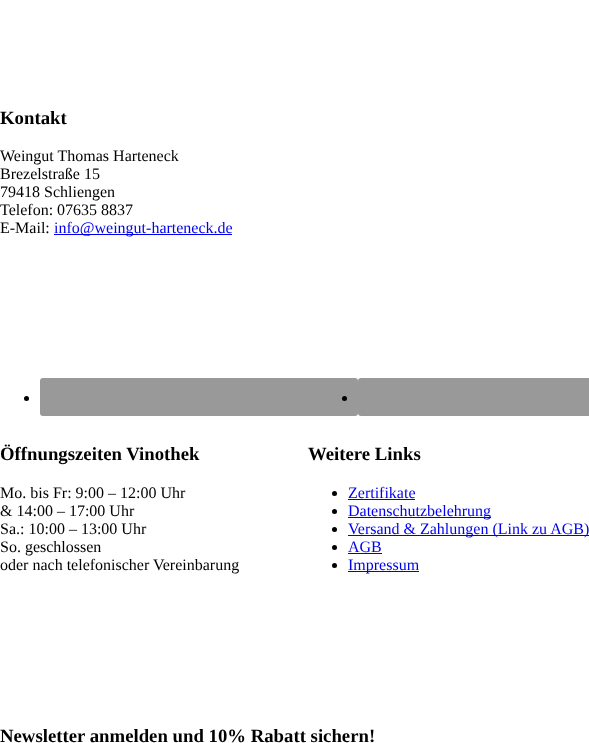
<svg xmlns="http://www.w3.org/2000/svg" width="589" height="743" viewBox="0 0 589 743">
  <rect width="100%" height="100%" fill="#ffffff"/>
  <text x="0" y="124" font-family="Liberation Serif" font-size="18.75" font-weight="bold" fill="#000000">Kontakt</text>
  <text x="0" y="161" font-family="Liberation Serif" font-size="16" fill="#000000">Weingut Thomas Harteneck</text>
  <text x="0" y="179" font-family="Liberation Serif" font-size="16" fill="#000000">Brezelstraße 15</text>
  <text x="0" y="197" font-family="Liberation Serif" font-size="16" fill="#000000">79418 Schliengen</text>
  <text x="0" y="215" font-family="Liberation Serif" font-size="16" fill="#000000">Telefon: 07635 8837</text>
  <text x="0" y="233" font-family="Liberation Serif" font-size="16" fill="#000000">E-Mail:</text>
  <rect x="54" y="234" width="178" height="1" fill="#0000ee"/>
  <text x="54" y="233" font-family="Liberation Serif" font-size="16" fill="#0000ee">info@weingut-harteneck.de</text>
  <circle cx="26.5" cy="398.5" r="2.5" fill="#000000"/>
  <rect x="40" y="378" width="318" height="38" rx="3" fill="#999999"/>
  <circle cx="344.5" cy="398.5" r="2.5" fill="#000000"/>
  <rect x="358" y="378" width="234" height="38" rx="3" fill="#999999"/>
  <text x="0" y="460" font-family="Liberation Serif" font-size="18.75" font-weight="bold" fill="#000000">Öffnungszeiten Vinothek</text>
  <text x="0" y="498" font-family="Liberation Serif" font-size="16" fill="#000000">Mo. bis Fr: 9:00 – 12:00 Uhr</text>
  <text x="0" y="516" font-family="Liberation Serif" font-size="16" fill="#000000">&amp; 14:00 – 17:00 Uhr</text>
  <text x="0" y="534" font-family="Liberation Serif" font-size="16" fill="#000000">Sa.: 10:00 – 13:00 Uhr</text>
  <text x="0" y="552" font-family="Liberation Serif" font-size="16" fill="#000000">So. geschlossen</text>
  <text x="0" y="570" font-family="Liberation Serif" font-size="16" fill="#000000">oder nach telefonischer Vereinbarung</text>
  <text x="308" y="460" font-family="Liberation Serif" font-size="18.75" font-weight="bold" fill="#000000">Weitere Links</text>
  <circle cx="334.5" cy="493.5" r="2.5" fill="#000000"/>
  <text x="348" y="498" font-family="Liberation Serif" font-size="16" fill="#0000ee">Zertifikate</text>
  <rect x="348" y="499" width="67" height="1" fill="#0000ee"/>
  <circle cx="334.5" cy="511.5" r="2.5" fill="#000000"/>
  <rect x="348" y="517" width="143" height="1" fill="#0000ee"/>
  <text x="348" y="516" font-family="Liberation Serif" font-size="16" fill="#0000ee">Datenschutzbelehrung</text>
  <circle cx="334.5" cy="529.5" r="2.5" fill="#000000"/>
  <rect x="348" y="535" width="241" height="1" fill="#0000ee"/>
  <text x="348" y="534" font-family="Liberation Serif" font-size="16" fill="#0000ee">Versand &amp; Zahlungen (Link zu AGB)</text>
  <circle cx="334.5" cy="547.5" r="2.5" fill="#000000"/>
  <text x="348" y="552" font-family="Liberation Serif" font-size="16" fill="#0000ee">AGB</text>
  <rect x="348" y="553" width="34" height="1" fill="#0000ee"/>
  <circle cx="334.5" cy="565.5" r="2.5" fill="#000000"/>
  <rect x="348" y="571" width="71" height="1" fill="#0000ee"/>
  <text x="348" y="570" font-family="Liberation Serif" font-size="16" fill="#0000ee">Impressum</text>
  <text x="0" y="742" font-family="Liberation Serif" font-size="18.75" font-weight="bold" fill="#000000">Newsletter anmelden und 10% Rabatt sichern!</text>
</svg>
